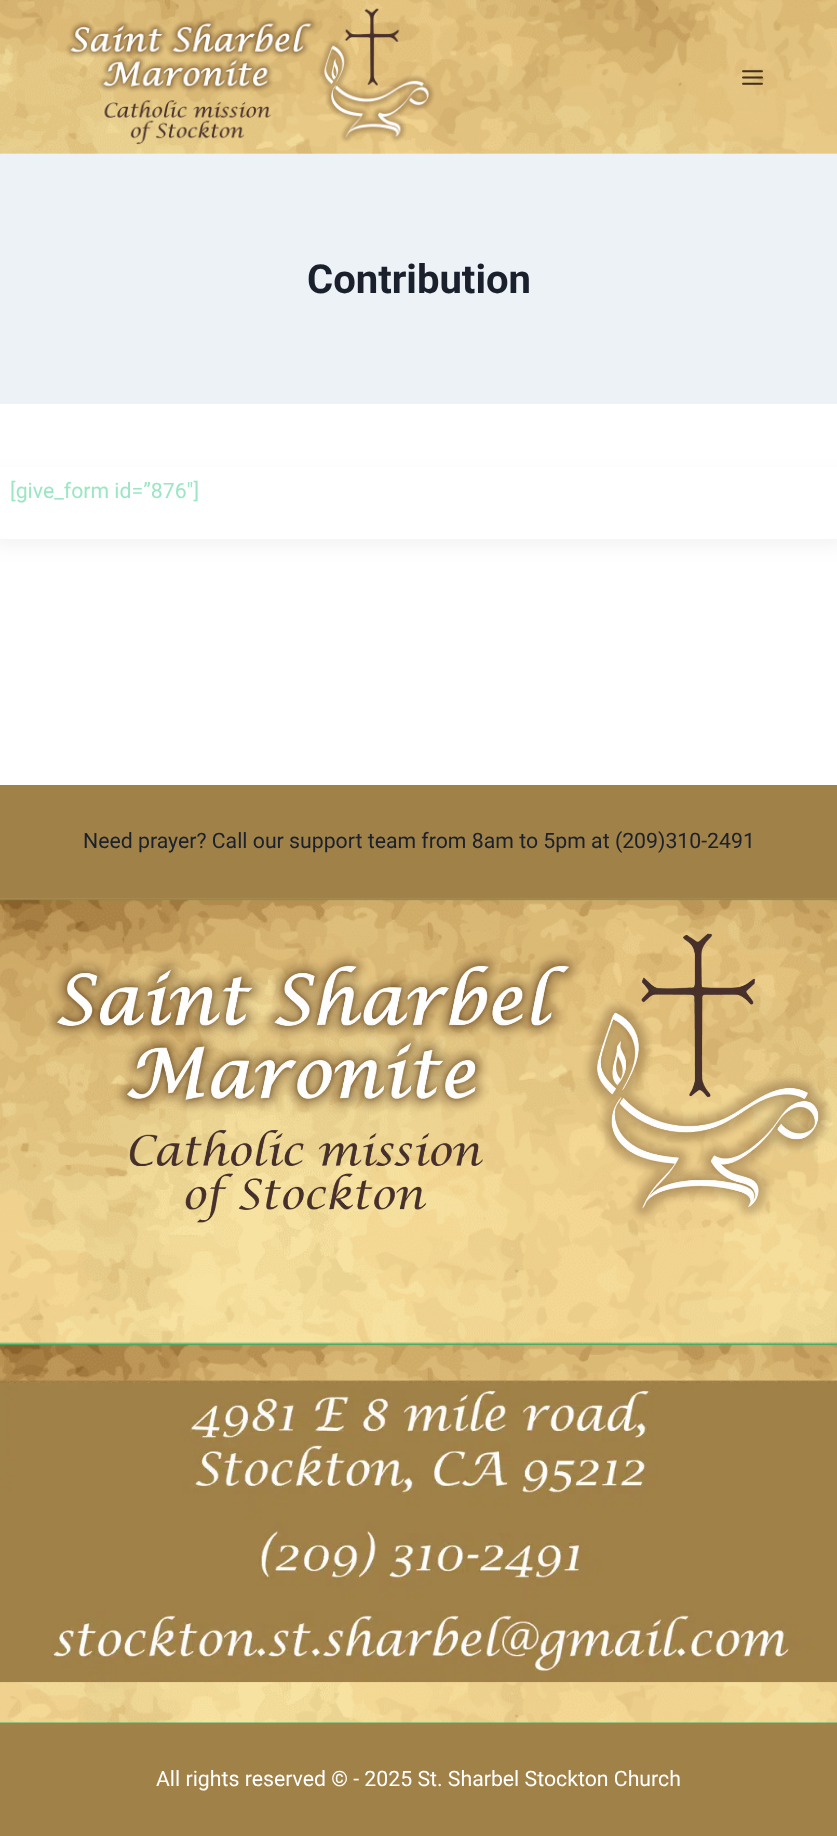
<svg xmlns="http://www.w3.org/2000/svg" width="837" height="1836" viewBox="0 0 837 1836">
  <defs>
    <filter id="blur1" x="-50%" y="-200%" width="200%" height="500%"><feGaussianBlur stdDeviation="9.5"/></filter>
  </defs>
  <rect width="100%" height="100%" fill="#ffffff"/>
  <image x="0" y="0" width="837" height="154" href="img1.png"/>
  <image x="65" y="8" width="370" height="137" href="img2.png"/>
  <image x="742" y="70" width="21" height="15" href="img3.png"/>
  <rect x="0" y="154" width="837" height="250" fill="#edf2f7"/>
  <text x="307" y="293" font-family="Roboto" font-size="40" font-weight="bold" fill="#1a202c">Contribution</text>
  <rect x="-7" y="475" width="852" height="70" fill="#000000" fill-opacity="0.05" filter="url(#blur1)"/>
  <rect x="0" y="467" width="837" height="72" fill="#ffffff"/>
  <text x="10" y="498" font-family="Roboto" font-size="21.25" fill="#9ce6c5">[give_form id=”876″]</text>
  <rect x="0" y="785" width="837" height="114" fill="#a08148"/>
  <text x="83" y="848" font-family="Roboto" font-size="21.25" fill="#1a202c">Need prayer? Call our support team from 8am to 5pm at (209)310-2491</text>
  <rect x="0" y="899" width="837" height="824" fill="#41ad68"/>
  <image x="0" y="898" width="837" height="825" href="img4.png"/>
  <image x="46" y="933" width="786" height="290" href="img5.png"/>
  <image x="0" y="1380" width="837" height="303" href="img6.png"/>
  <rect x="0" y="1723" width="837" height="113" fill="#a08148"/>
  <text x="156" y="1786" font-family="Roboto" font-size="21.25" fill="#ffffff">All rights reserved © - 2025 St. Sharbel Stockton Church</text>
</svg>
